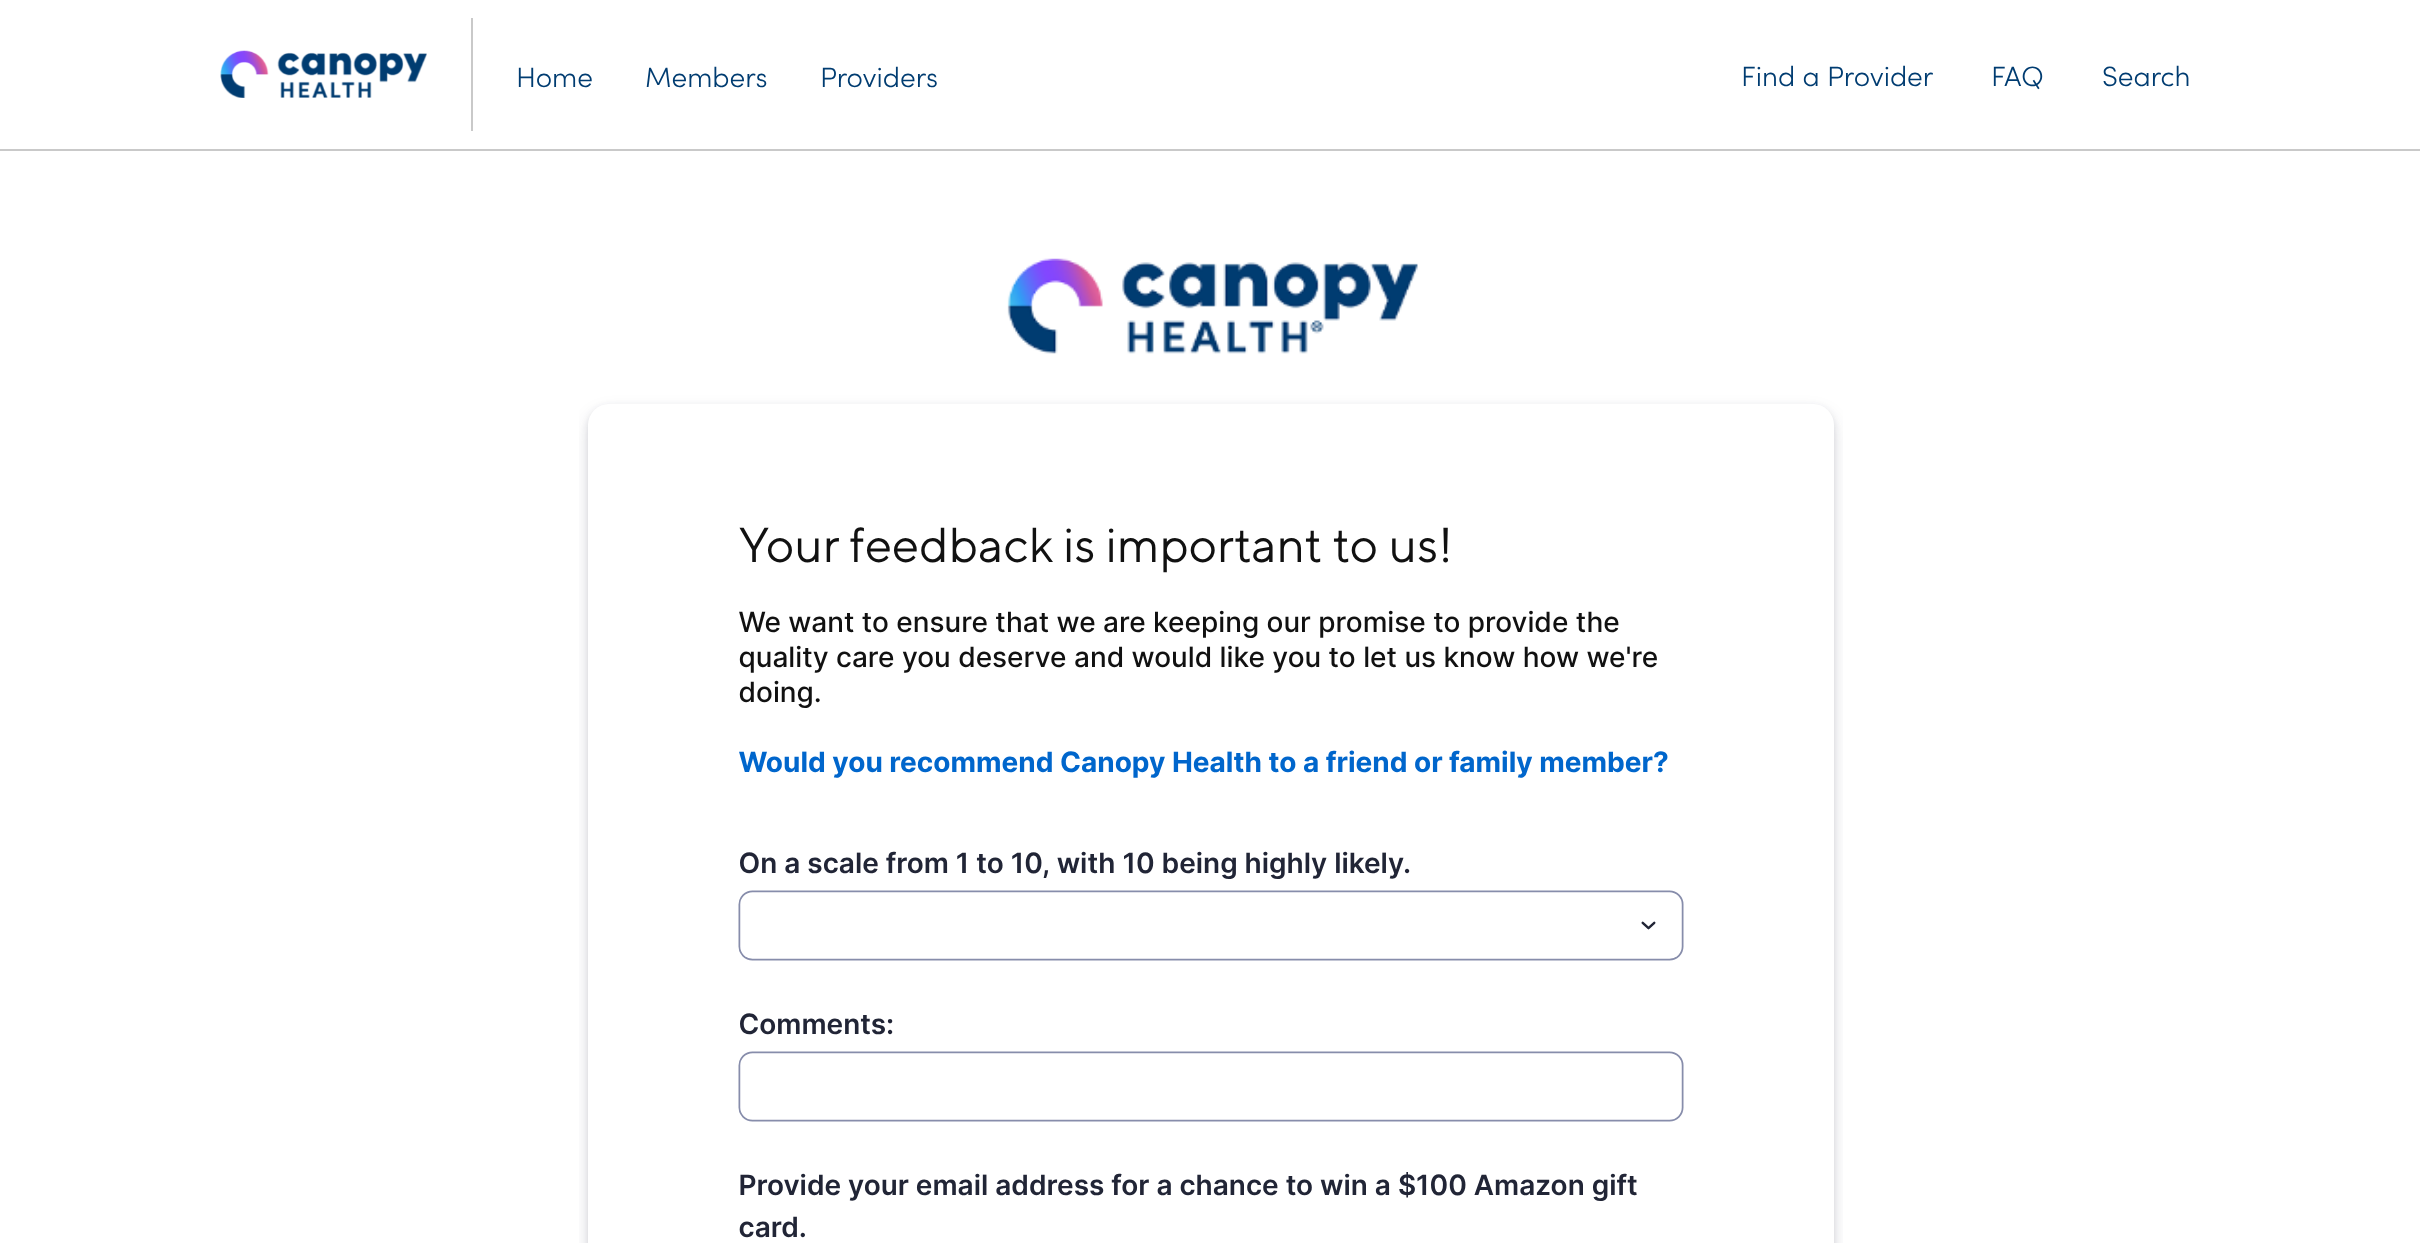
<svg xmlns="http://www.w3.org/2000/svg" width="2420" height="1243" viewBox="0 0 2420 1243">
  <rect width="100%" height="100%" fill="#ffffff"/>
  <rect x="0" y="149" width="2420" height="2" fill="#c9c9c9"/>
  <rect x="471" y="18" width="2" height="113" fill="#c9c9c9"/>
  <image x="220" y="50" width="207" height="48" href="img1.png"/>
  <text x="516" y="87" font-family="Sofia" font-size="28" font-weight="300" fill="#003c71">Home</text>
  <text x="645" y="87" font-family="Sofia" font-size="28" font-weight="300" fill="#003c71">Members</text>
  <text x="820" y="87" font-family="Sofia" font-size="28" font-weight="300" fill="#003c71">Providers</text>
  <text x="1741" y="86" font-family="Sofia" font-size="28" font-weight="300" fill="#003c71">Find a Provider</text>
  <text x="1991" y="86" font-family="Sofia" font-size="28" font-weight="300" fill="#003c71">FAQ</text>
  <text x="2102" y="86" font-family="Sofia" font-size="28" font-weight="300" fill="#003c71">Search</text>
  <image x="579" y="258" width="1264" height="985" href="img2.png"/>
</svg>
